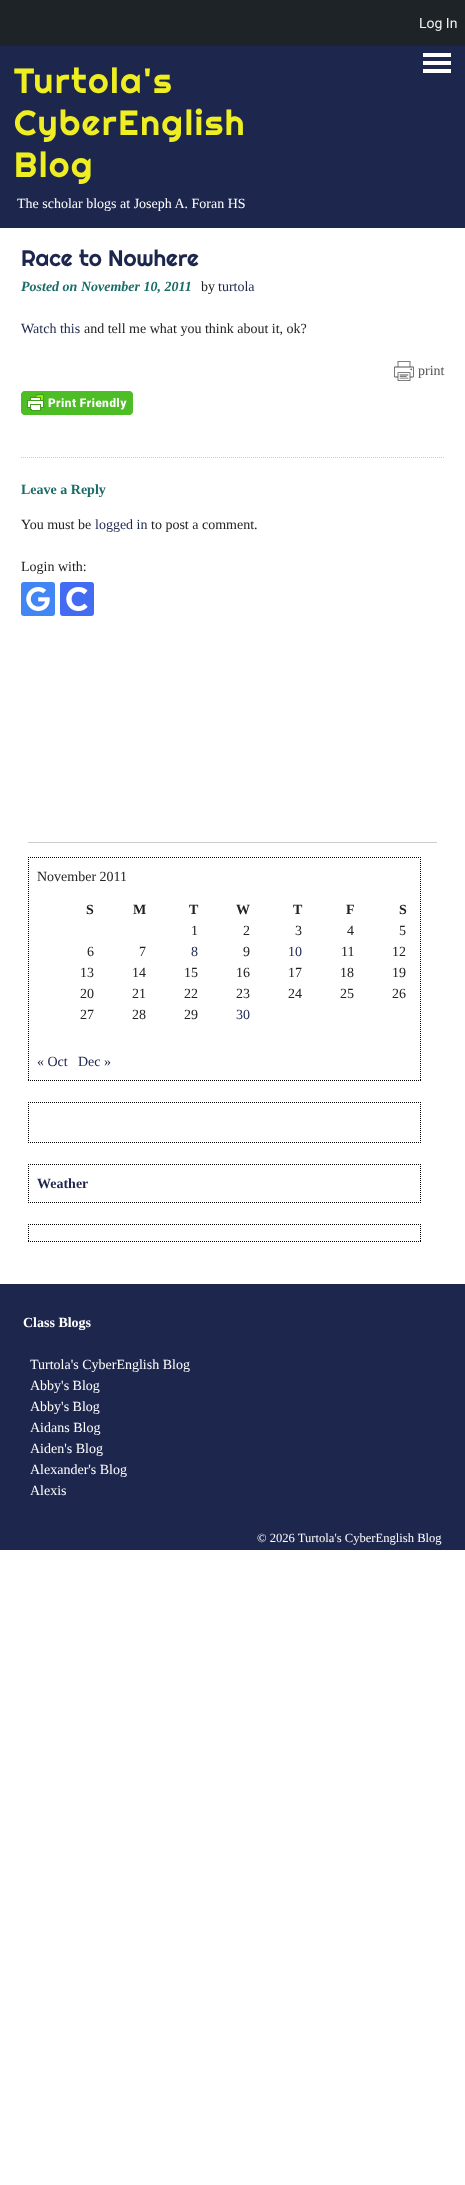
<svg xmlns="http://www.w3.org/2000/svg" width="465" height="2185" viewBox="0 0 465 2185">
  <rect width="100%" height="100%" fill="#ffffff"/>
  <rect x="0" y="0" width="465" height="46" fill="#1d2327"/>
  <text x="419" y="28" font-family="Roboto" font-size="14" fill="#f0f0f1">Log In</text>
  <rect x="0" y="46" width="465" height="182" fill="#1d264d"/>
  <image x="423" y="53" width="28" height="20" href="img1.png"/>
  <text x="14" y="93" font-family="Righteous" font-size="35" letter-spacing="1.75" fill="#eeee22">Turtola's</text>
  <text x="14" y="135" font-family="Righteous" font-size="35" letter-spacing="1.75" fill="#eeee22">CyberEnglish</text>
  <text x="14" y="177" font-family="Righteous" font-size="35" letter-spacing="1.75" fill="#eeee22">Blog</text>
  <text x="17" y="208" font-family="Liberation Serif" font-size="14" fill="#ffffff">The scholar blogs at Joseph A. Foran HS</text>
  <text x="21" y="266" font-family="Righteous" font-size="22.5" fill="#1d264d">Race to Nowhere</text>
  <text x="21" y="291" font-family="Liberation Serif" font-size="14" font-weight="bold" font-style="italic" fill="#1a6c68">Posted on November 10, 2011</text>
  <text x="201" y="291" font-family="Liberation Serif" font-size="14" fill="#222222">by</text>
  <text x="218" y="291" font-family="Liberation Serif" font-size="14" fill="#1d264d">turtola</text>
  <path d="M21 457.5H444" fill="none" stroke="#cccccc" stroke-dasharray="1 1"/>
  <text x="21" y="333" font-family="Liberation Serif" font-size="14" fill="#1d264d">Watch this</text>
  <text x="84" y="333" font-family="Liberation Serif" font-size="14" fill="#222222">and tell me what you think about it, ok?</text>
  <image x="394" y="361" width="20" height="20" href="img2.png"/>
  <text x="418" y="375" font-family="Liberation Serif" font-size="14" fill="#555555">print</text>
  <image x="21" y="391" width="112" height="24" href="img3.png"/>
  <text x="21" y="494" font-family="Liberation Serif" font-size="14" font-weight="bold" fill="#1a6c68">Leave a Reply</text>
  <text x="21" y="529" font-family="Liberation Serif" font-size="14" fill="#222222">You must be</text>
  <text x="95" y="529" font-family="Liberation Serif" font-size="14" fill="#1d264d">logged in</text>
  <text x="151" y="529" font-family="Liberation Serif" font-size="14" fill="#222222">to post a comment.</text>
  <text x="21" y="571" font-family="Liberation Serif" font-size="14" fill="#222222">Login with:</text>
  <rect x="21" y="582" width="34" height="34" rx="3" fill="#4285f4"/>
  <image x="26" y="587" width="24" height="24" href="img4.png"/>
  <rect x="60" y="582" width="34" height="34" rx="3" fill="#436cf2"/>
  <image x="66" y="587" width="22" height="24" href="img5.png"/>
  <rect x="28" y="842" width="409" height="1" fill="#cccccc"/>
  <path d="M28 857.5H421" fill="none" stroke="#000000" stroke-dasharray="1 1"/>
  <path d="M420.5 857V1081" fill="none" stroke="#000000" stroke-dasharray="1 1"/>
  <path d="M28 1080.5H421" fill="none" stroke="#000000" stroke-dasharray="1 1"/>
  <path d="M28.5 857V1081" fill="none" stroke="#000000" stroke-dasharray="1 1"/>
  <text x="37" y="881" font-family="Liberation Serif" font-size="14" fill="#222222">November 2011</text>
  <text x="86" y="914" font-family="Liberation Serif" font-size="14" font-weight="bold" fill="#222222">S</text>
  <text x="133" y="914" font-family="Liberation Serif" font-size="14" font-weight="bold" fill="#222222">M</text>
  <text x="189" y="914" font-family="Liberation Serif" font-size="14" font-weight="bold" fill="#222222">T</text>
  <text x="236" y="914" font-family="Liberation Serif" font-size="14" font-weight="bold" fill="#222222">W</text>
  <text x="293" y="914" font-family="Liberation Serif" font-size="14" font-weight="bold" fill="#222222">T</text>
  <text x="346" y="914" font-family="Liberation Serif" font-size="14" font-weight="bold" fill="#222222">F</text>
  <text x="399" y="914" font-family="Liberation Serif" font-size="14" font-weight="bold" fill="#222222">S</text>
  <text x="191" y="935" font-family="Liberation Serif" font-size="14" fill="#222222">1</text>
  <text x="243" y="935" font-family="Liberation Serif" font-size="14" fill="#222222">2</text>
  <text x="295" y="935" font-family="Liberation Serif" font-size="14" fill="#222222">3</text>
  <text x="347" y="935" font-family="Liberation Serif" font-size="14" fill="#222222">4</text>
  <text x="399" y="935" font-family="Liberation Serif" font-size="14" fill="#222222">5</text>
  <text x="87" y="956" font-family="Liberation Serif" font-size="14" fill="#222222">6</text>
  <text x="139" y="956" font-family="Liberation Serif" font-size="14" fill="#222222">7</text>
  <text x="191" y="956" font-family="Liberation Serif" font-size="14" fill="#1d264d">8</text>
  <text x="243" y="956" font-family="Liberation Serif" font-size="14" fill="#222222">9</text>
  <text x="288" y="956" font-family="Liberation Serif" font-size="14" fill="#1d264d">10</text>
  <text x="341" y="956" font-family="Liberation Serif" font-size="14" fill="#222222">11</text>
  <text x="392" y="956" font-family="Liberation Serif" font-size="14" fill="#222222">12</text>
  <text x="80" y="977" font-family="Liberation Serif" font-size="14" fill="#222222">13</text>
  <text x="132" y="977" font-family="Liberation Serif" font-size="14" fill="#222222">14</text>
  <text x="184" y="977" font-family="Liberation Serif" font-size="14" fill="#222222">15</text>
  <text x="236" y="977" font-family="Liberation Serif" font-size="14" fill="#222222">16</text>
  <text x="288" y="977" font-family="Liberation Serif" font-size="14" fill="#222222">17</text>
  <text x="340" y="977" font-family="Liberation Serif" font-size="14" fill="#222222">18</text>
  <text x="392" y="977" font-family="Liberation Serif" font-size="14" fill="#222222">19</text>
  <text x="80" y="998" font-family="Liberation Serif" font-size="14" fill="#222222">20</text>
  <text x="132" y="998" font-family="Liberation Serif" font-size="14" fill="#222222">21</text>
  <text x="184" y="998" font-family="Liberation Serif" font-size="14" fill="#222222">22</text>
  <text x="236" y="998" font-family="Liberation Serif" font-size="14" fill="#222222">23</text>
  <text x="288" y="998" font-family="Liberation Serif" font-size="14" fill="#222222">24</text>
  <text x="340" y="998" font-family="Liberation Serif" font-size="14" fill="#222222">25</text>
  <text x="392" y="998" font-family="Liberation Serif" font-size="14" fill="#222222">26</text>
  <text x="80" y="1019" font-family="Liberation Serif" font-size="14" fill="#222222">27</text>
  <text x="132" y="1019" font-family="Liberation Serif" font-size="14" fill="#222222">28</text>
  <text x="184" y="1019" font-family="Liberation Serif" font-size="14" fill="#222222">29</text>
  <text x="236" y="1019" font-family="Liberation Serif" font-size="14" fill="#1d264d">30</text>
  <text x="37" y="1066" font-family="Liberation Serif" font-size="14" fill="#1d264d">« Oct</text>
  <text x="78" y="1066" font-family="Liberation Serif" font-size="14" fill="#1d264d">Dec »</text>
  <path d="M28 1102.5H421" fill="none" stroke="#000000" stroke-dasharray="1 1"/>
  <path d="M420.5 1102V1143" fill="none" stroke="#000000" stroke-dasharray="1 1"/>
  <path d="M28 1142.5H421" fill="none" stroke="#000000" stroke-dasharray="1 1"/>
  <path d="M28.5 1102V1143" fill="none" stroke="#000000" stroke-dasharray="1 1"/>
  <path d="M28 1164.5H421" fill="none" stroke="#000000" stroke-dasharray="1 1"/>
  <path d="M420.5 1164V1203" fill="none" stroke="#000000" stroke-dasharray="1 1"/>
  <path d="M28 1202.5H421" fill="none" stroke="#000000" stroke-dasharray="1 1"/>
  <path d="M28.5 1164V1203" fill="none" stroke="#000000" stroke-dasharray="1 1"/>
  <text x="37" y="1188" font-family="Liberation Serif" font-size="14" font-weight="bold" fill="#1d264d">Weather</text>
  <path d="M28 1224.5H421" fill="none" stroke="#000000" stroke-dasharray="1 1"/>
  <path d="M420.5 1224V1242" fill="none" stroke="#000000" stroke-dasharray="1 1"/>
  <path d="M28 1241.5H421" fill="none" stroke="#000000" stroke-dasharray="1 1"/>
  <path d="M28.5 1224V1242" fill="none" stroke="#000000" stroke-dasharray="1 1"/>
  <rect x="0" y="1284" width="465" height="266" fill="#1d264d"/>
  <text x="23" y="1327" font-family="Liberation Serif" font-size="14" font-weight="bold" fill="#ffffff">Class Blogs</text>
  <text x="30" y="1369" font-family="Liberation Serif" font-size="14" fill="#ffffff">Turtola's CyberEnglish Blog</text>
  <text x="30" y="1390" font-family="Liberation Serif" font-size="14" fill="#ffffff">Abby's Blog</text>
  <text x="30" y="1411" font-family="Liberation Serif" font-size="14" fill="#ffffff">Abby's Blog</text>
  <text x="30" y="1432" font-family="Liberation Serif" font-size="14" fill="#ffffff">Aidans Blog</text>
  <text x="30" y="1453" font-family="Liberation Serif" font-size="14" fill="#ffffff">Aiden's Blog</text>
  <text x="30" y="1474" font-family="Liberation Serif" font-size="14" fill="#ffffff">Alexander's Blog</text>
  <text x="30" y="1495" font-family="Liberation Serif" font-size="14" fill="#ffffff">Alexis</text>
  <text x="257" y="1542" font-family="Liberation Serif" font-size="12.6" fill="#ffffff">© 2026 Turtola's CyberEnglish Blog</text>
</svg>
